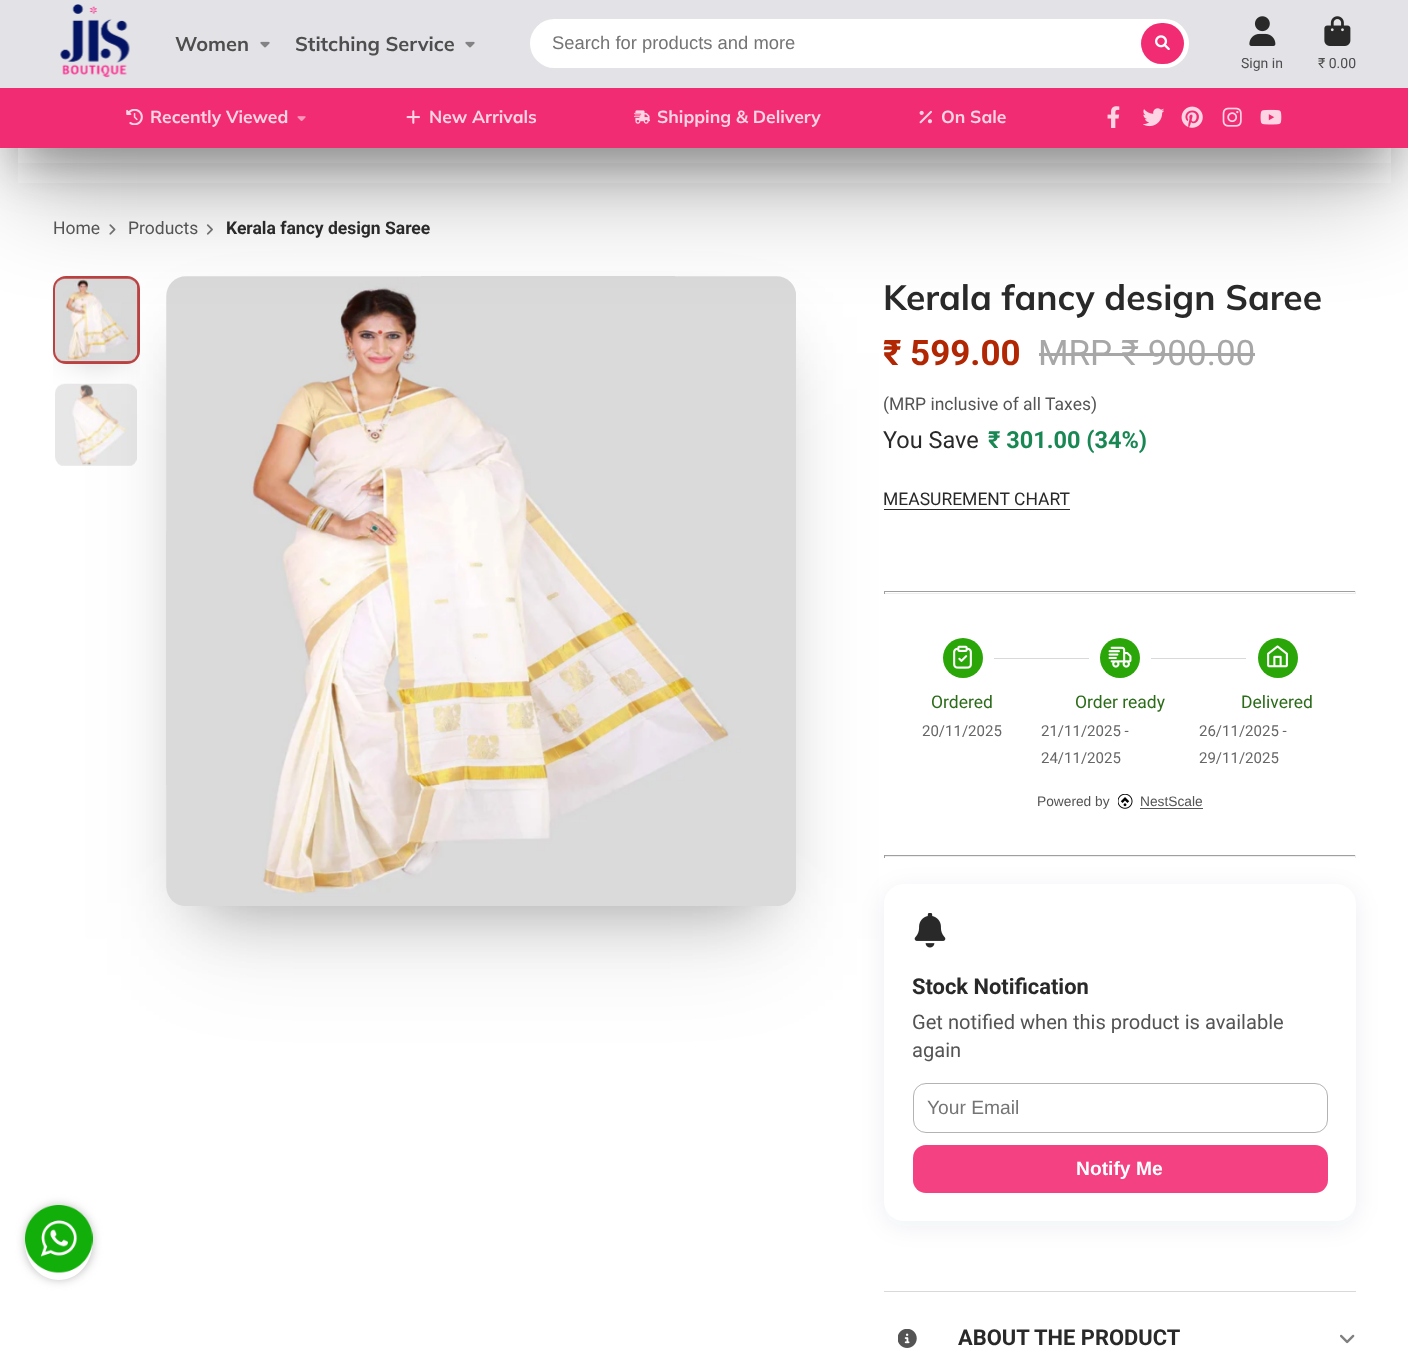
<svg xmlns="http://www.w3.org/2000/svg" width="1408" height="1357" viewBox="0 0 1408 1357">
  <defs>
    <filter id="blur1" x="-50%" y="-200%" width="200%" height="500%"><feGaussianBlur stdDeviation="24"/></filter>
    <clipPath id="clip1"><rect x="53" y="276" width="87" height="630"/></clipPath>
    <filter id="blur2" x="-50%" y="-200%" width="200%" height="500%"><feGaussianBlur stdDeviation="17.5"/></filter>
    <filter id="blur3" x="-50%" y="-200%" width="200%" height="500%"><feGaussianBlur stdDeviation="33"/></filter>
    <filter id="blur4" x="-50%" y="-200%" width="200%" height="500%"><feGaussianBlur stdDeviation="54.5"/></filter>
    <clipPath id="clip2"><path d="M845 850H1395V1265H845ZM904 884H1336C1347 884 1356 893 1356 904V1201C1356 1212 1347 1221 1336 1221H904C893 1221 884 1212 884 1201V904C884 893 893 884 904 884Z" clip-rule="evenodd"/></clipPath>
    <filter id="blur5" x="-50%" y="-200%" width="200%" height="500%"><feGaussianBlur stdDeviation="12.5"/></filter>
    <clipPath id="clip3"><path d="M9 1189H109V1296H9ZM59 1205C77.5 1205 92.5 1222 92.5 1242.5C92.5 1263 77.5 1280 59 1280C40 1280 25 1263 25 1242.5C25 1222 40 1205 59 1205Z" clip-rule="evenodd"/></clipPath>
    <filter id="blur6" x="-50%" y="-200%" width="200%" height="500%"><feGaussianBlur stdDeviation="5"/></filter>
  </defs>
  <rect width="100%" height="100%" fill="#ffffff"/>
  <image x="109" y="224" width="7" height="11" href="img16.png"/>
  <image x="206" y="224" width="7" height="11" href="img17.png"/>
  <rect x="18" y="50" width="1373" height="113" fill="#1c1c1c" fill-opacity="0.4" filter="url(#blur1)"/>
  <g clip-path="url(#clip1)">
    <rect x="70" y="303" width="53" height="52" fill="#1c1c1c" fill-opacity="0.3" filter="url(#blur2)"/>
  </g>
  <rect x="54.5" y="277.5" width="84" height="85" rx="11.5" fill="none" stroke="#bc4242" stroke-width="3"/>
  <image x="55" y="278" width="83" height="84" href="img19.png"/>
  <image x="55" y="383" width="82" height="83" href="img20.png"/>
  <rect x="199" y="343" width="565" height="563" fill="#1c1c1c" fill-opacity="0.3" filter="url(#blur3)"/>
  <rect x="189" y="353" width="586" height="586" fill="#1c1c1c" fill-opacity="0.1" filter="url(#blur4)"/>
  <image x="166" y="276" width="630" height="630" href="img18.png"/>
  <rect x="18" y="73" width="1373" height="112" fill="#1c1c1c" fill-opacity="0.3" filter="url(#blur4)"/>
  <rect x="0" y="0" width="1408" height="88" fill="#e3e3e7"/>
  <image x="60" y="4" width="70" height="74" href="img1.png"/>
  <text x="175" y="51" font-family="Muli" font-size="20" font-weight="bold" fill="#4e4e4f">Women</text>
  <image x="260" y="41" width="10" height="7" href="img2.png"/>
  <text x="295" y="51" font-family="Muli" font-size="20" font-weight="bold" fill="#4e4e4f">Stitching Service</text>
  <image x="465" y="41" width="10" height="7" href="img2.png"/>
  <rect x="530" y="19" width="659" height="49" rx="24.5" fill="#ffffff"/>
  <text x="552" y="49" font-family="Liberation Sans" font-size="18.4" fill="#757575">Search for products and more</text>
  <rect x="1141" y="23" width="43" height="41" rx="20.5" fill="#f22c73"/>
  <image x="1155" y="35" width="15" height="15" href="img3.png"/>
  <image x="1249" y="16" width="27" height="30" href="img4.png"/>
  <text x="1241" y="68" font-family="Roboto" font-size="14" fill="#4e4e4f">Sign in</text>
  <image x="1324" y="16" width="27" height="30" href="img5.png"/>
  <text x="1318" y="68" font-family="Roboto" font-size="14" fill="#4e4e4f">₹ 0.00</text>
  <rect x="0" y="88" width="1408" height="60" fill="#f22c73"/>
  <image x="126" y="109" width="17" height="16" href="img6.png"/>
  <text x="150" y="123" font-family="Muli" font-size="17.5" font-weight="bold" fill="#fcd5e3">Recently Viewed</text>
  <image x="297" y="116" width="9" height="5" href="img7.png"/>
  <image x="406" y="110" width="14" height="14" href="img8.png"/>
  <text x="429" y="123" font-family="Muli" font-size="17.5" font-weight="bold" fill="#fcd5e3">New Arrivals</text>
  <image x="634" y="110" width="16" height="14" href="img9.png"/>
  <text x="657" y="123" font-family="Muli" font-size="17.5" font-weight="bold" fill="#fcd5e3">Shipping &amp; Delivery</text>
  <image x="919" y="110" width="13" height="14" href="img10.png"/>
  <text x="941" y="123" font-family="Muli" font-size="17.5" font-weight="bold" fill="#fcd5e3">On Sale</text>
  <image x="1107" y="106" width="13" height="22" href="img11.png"/>
  <image x="1143" y="108" width="21" height="19" href="img12.png"/>
  <image x="1181" y="106" width="22" height="22" href="img13.png"/>
  <image x="1222" y="107" width="20" height="20" href="img14.png"/>
  <image x="1260" y="109" width="22" height="16" href="img15.png"/>
  <text x="53" y="234" font-family="Roboto" font-size="17.5" fill="#545454">Home</text>
  <text x="128" y="234" font-family="Roboto" font-size="17.5" fill="#545454">Products</text>
  <text x="226" y="234" font-family="Roboto" font-size="17.5" font-weight="bold" fill="#292929">Kerala fancy design Saree</text>
  <text x="883" y="310" font-family="Muli" font-size="35.25" font-weight="bold" fill="#292929">Kerala fancy design Saree</text>
  <text x="883" y="365" font-family="Roboto" font-size="35" font-weight="bold" fill="#b12704">₹ 599.00</text>
  <text x="1038" y="365" font-family="Roboto" font-size="35" fill="#a7a7a7">MRP ₹ 900.00</text>
  <rect x="1039" y="353" width="216" height="3" fill="#a7a7a7"/>
  <text x="883" y="410" font-family="Roboto" font-size="17.5" fill="#545454">(MRP inclusive of all Taxes)</text>
  <text x="883" y="448" font-family="Roboto" font-size="23.5" fill="#292929">You Save</text>
  <text x="988" y="448" font-family="Roboto" font-size="23.5" font-weight="bold" fill="#198754">₹ 301.00 (34%)</text>
  <text x="883" y="505" font-family="Roboto" font-size="17.5" fill="#292929">MEASUREMENT CHART</text>
  <rect x="884" y="509" width="186" height="1" fill="#292929"/>
  <rect x="884" y="591" width="472" height="1" fill="#9f9f9f"/>
  <rect x="1355" y="591" width="1" height="3" fill="#eeeeee"/>
  <rect x="884" y="593" width="472" height="1" fill="#eeeeee"/>
  <rect x="884" y="591" width="1" height="3" fill="#9f9f9f"/>
  <circle cx="963" cy="658" r="20" fill="#2aa608"/>
  <image x="953" y="645" width="19" height="24" href="img21.png"/>
  <rect x="994" y="658" width="95" height="1" fill="#d9d9d9"/>
  <circle cx="1120" cy="658" r="20" fill="#2aa608"/>
  <image x="1108" y="646" width="24" height="22" href="img22.png"/>
  <rect x="1151" y="658" width="95" height="1" fill="#d9d9d9"/>
  <circle cx="1278" cy="658" r="20" fill="#2aa608"/>
  <image x="1267" y="645" width="21" height="23" href="img23.png"/>
  <text x="931" y="708" font-family="Roboto" font-size="17.5" fill="#2b6b19">Ordered</text>
  <text x="922" y="736" font-family="Roboto" font-size="15" fill="#666666">20/11/2025</text>
  <text x="1075" y="708" font-family="Roboto" font-size="17.5" fill="#2b6b19">Order ready</text>
  <text x="1041" y="736" font-family="Roboto" font-size="15" fill="#666666">21/11/2025 -</text>
  <text x="1041" y="763" font-family="Roboto" font-size="15" fill="#666666">24/11/2025</text>
  <text x="1241" y="708" font-family="Roboto" font-size="17.5" fill="#2b6b19">Delivered</text>
  <text x="1199" y="736" font-family="Roboto" font-size="15" fill="#666666">26/11/2025 -</text>
  <text x="1199" y="763" font-family="Roboto" font-size="15" fill="#666666">29/11/2025</text>
  <text x="1037" y="806" font-family="Liberation Sans" font-size="13.75" fill="#545454">Powered by</text>
  <image x="1118" y="794" width="15" height="15" href="img24.png"/>
  <text x="1140" y="806" font-family="Liberation Sans" font-size="13.75" fill="#545454">NestScale</text>
  <rect x="1140" y="808" width="63" height="1" fill="#555555"/>
  <rect x="884" y="855" width="472" height="1" fill="#9f9f9f"/>
  <rect x="1355" y="855" width="1" height="3" fill="#eeeeee"/>
  <rect x="884" y="856" width="472" height="1" fill="#eeeeee"/>
  <rect x="884" y="855" width="1" height="3" fill="#9f9f9f"/>
  <g clip-path="url(#clip2)">
    <rect x="884" y="889" width="472" height="337" rx="20" fill="#133f52" fill-opacity="0.07" filter="url(#blur5)"/>
  </g>
  <image x="914" y="913" width="32" height="35" href="img25.png"/>
  <text x="912" y="994" font-family="Roboto" font-size="21.9" font-weight="bold" fill="#292929">Stock Notification</text>
  <text x="912" y="1029" font-family="Roboto" font-size="20.1" fill="#545454">Get notified when this product is available</text>
  <text x="912" y="1057" font-family="Roboto" font-size="20.1" fill="#545454">again</text>
  <rect x="913.5" y="1083.5" width="414" height="49" rx="12.5" fill="none" stroke="#b3b3b3"/>
  <text x="927" y="1114" font-family="Liberation Sans" font-size="19.25" fill="#757575">Your Email</text>
  <rect x="913" y="1145" width="415" height="48" rx="13" fill="#f34181"/>
  <text x="1076" y="1175" font-family="Liberation Sans" font-size="19.25" font-weight="bold" fill="#ffffff">Notify Me</text>
  <rect x="884" y="1291" width="472" height="1" fill="#d9d9d9"/>
  <image x="898" y="1329" width="19" height="19" href="img26.png"/>
  <text x="958" y="1345" font-family="Roboto" font-size="21.9" font-weight="bold" fill="#292929">ABOUT THE PRODUCT</text>
  <image x="1340" y="1334" width="15" height="10" href="img27.png"/>
  <g clip-path="url(#clip3)">
    <rect x="25" y="1205" width="68" height="75" rx="34" fill="#c2c2c2" filter="url(#blur6)"/>
  </g>
  <image x="25" y="1205" width="68" height="68" href="img28.png"/>
</svg>
